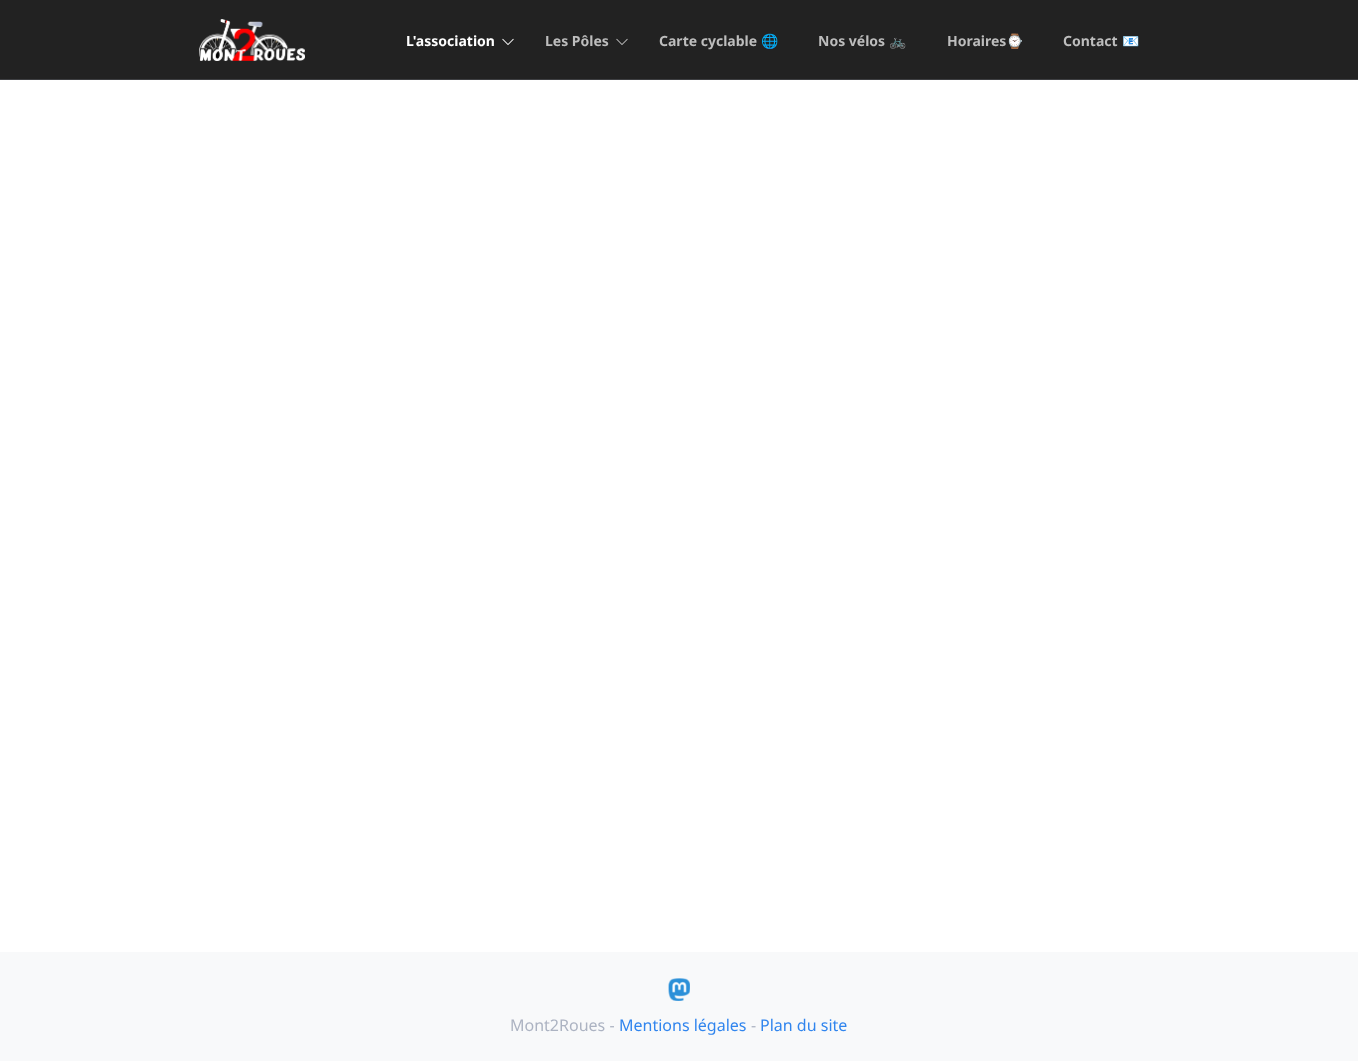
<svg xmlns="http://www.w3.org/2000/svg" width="1358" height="1061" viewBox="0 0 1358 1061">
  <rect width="100%" height="100%" fill="#ffffff"/>
  <rect x="0" y="0" width="1358" height="79" fill="#222222"/>
  <rect x="0" y="79" width="1358" height="1" fill="#3e3f42"/>
  <image x="199" y="19" width="106" height="42" href="img1.png"/>
  <text x="406" y="46" font-family="Noto Sans" font-size="14" font-weight="bold" fill="#ffffff">L'association</text>
  <image x="502" y="38" width="12" height="7" href="img2.png"/>
  <text x="545" y="46" font-family="Noto Sans" font-size="14" font-weight="bold" fill="#bdbdbd">Les Pôles</text>
  <image x="616" y="38" width="12" height="7" href="img3.png"/>
  <text x="659" y="46" font-family="Noto Sans" font-size="14" font-weight="bold" fill="#bdbdbd">Carte cyclable</text>
  <text x="761" y="46" font-family="Noto Color Emoji" font-size="14" font-weight="bold" fill="#bdbdbd">🌐</text>
  <text x="818" y="46" font-family="Noto Sans" font-size="14" font-weight="bold" fill="#bdbdbd">Nos vélos</text>
  <text x="889" y="46" font-family="Noto Color Emoji" font-size="14" font-weight="bold" fill="#bdbdbd">🚲</text>
  <text x="947" y="46" font-family="Noto Sans" font-size="14" font-weight="bold" fill="#bdbdbd">Horaires</text>
  <text x="1006" y="46" font-family="Noto Color Emoji" font-size="14" font-weight="bold" fill="#bdbdbd">⌚</text>
  <text x="1063" y="46" font-family="Noto Sans" font-size="14" font-weight="bold" fill="#bdbdbd">Contact</text>
  <text x="1122" y="46" font-family="Noto Color Emoji" font-size="14" font-weight="bold" fill="#bdbdbd">📧</text>
  <rect x="0" y="952" width="1358" height="109" fill="#f8f9fa"/>
  <image x="668" y="978" width="22" height="23" href="img4.png"/>
  <text x="510" y="1031" font-family="Noto Sans" font-size="16" fill="#acb3c2">Mont2Roues -</text>
  <text x="619" y="1031" font-family="Noto Sans" font-size="16" fill="#3085ee">Mentions légales</text>
  <text x="751" y="1031" font-family="Noto Sans" font-size="16" fill="#acb3c2">-</text>
  <text x="760" y="1031" font-family="Noto Sans" font-size="16" fill="#3085ee">Plan du site</text>
</svg>
